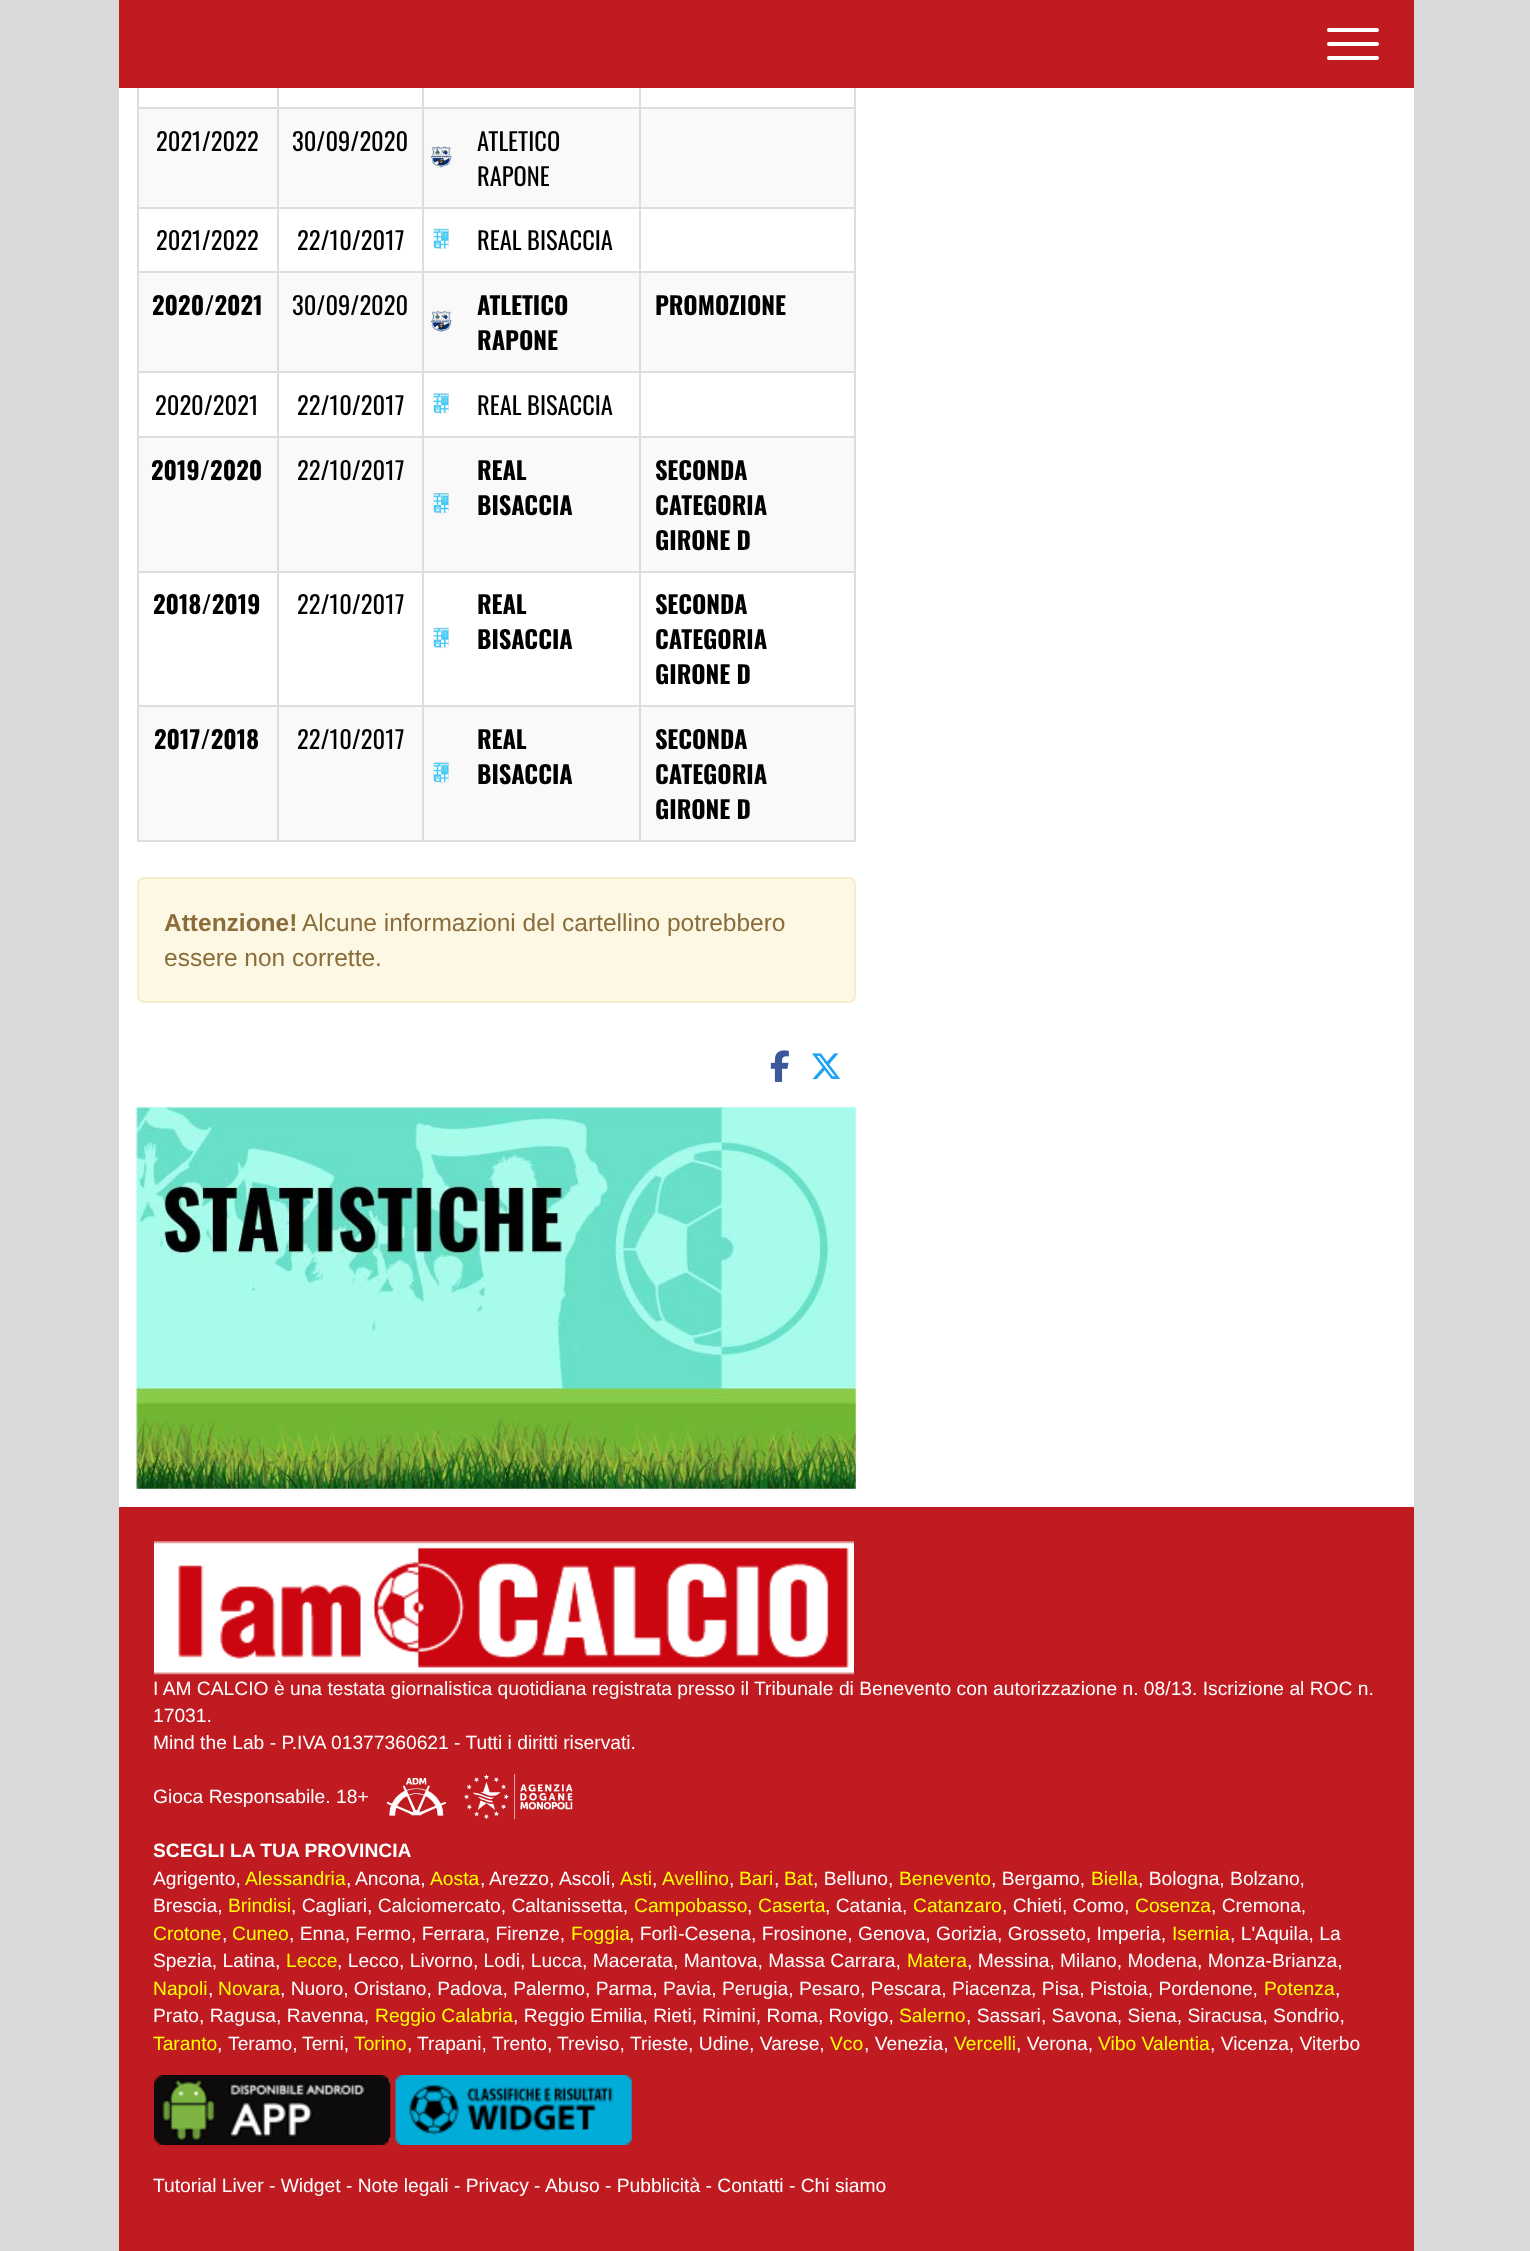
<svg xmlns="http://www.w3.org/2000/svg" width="1530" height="2251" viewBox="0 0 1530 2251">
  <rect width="100%" height="100%" fill="#dadada"/>
  <rect x="119" y="88" width="1295" height="1419" fill="#ffffff"/>
  <rect x="119" y="0" width="1295" height="88" fill="#c01b21"/>
  <rect x="1327" y="28" width="52" height="4" rx="2" fill="#ffffff"/>
  <rect x="1327" y="42" width="52" height="4" rx="2" fill="#ffffff"/>
  <rect x="1327" y="56" width="52" height="4" rx="2" fill="#ffffff"/>
  <rect x="854" y="88" width="2" height="754" fill="#dddddd"/>
  <rect x="137" y="840" width="719" height="2" fill="#dddddd"/>
  <rect x="137" y="88" width="2" height="754" fill="#dddddd"/>
  <rect x="639" y="107" width="217" height="2" fill="#dddddd"/>
  <rect x="139" y="109" width="715" height="98" fill="#f9f9f9"/>
  <rect x="639" y="207" width="217" height="2" fill="#dddddd"/>
  <rect x="639" y="271" width="217" height="2" fill="#dddddd"/>
  <rect x="139" y="273" width="715" height="98" fill="#f9f9f9"/>
  <rect x="639" y="371" width="217" height="2" fill="#dddddd"/>
  <rect x="639" y="436" width="217" height="2" fill="#dddddd"/>
  <rect x="139" y="438" width="715" height="133" fill="#f9f9f9"/>
  <rect x="639" y="571" width="217" height="2" fill="#dddddd"/>
  <rect x="639" y="705" width="217" height="2" fill="#dddddd"/>
  <rect x="139" y="707" width="715" height="133" fill="#f9f9f9"/>
  <rect x="639" y="705" width="2" height="137" fill="#dddddd"/>
  <rect x="422" y="705" width="219" height="2" fill="#dddddd"/>
  <rect x="639" y="571" width="2" height="136" fill="#dddddd"/>
  <rect x="422" y="571" width="219" height="2" fill="#dddddd"/>
  <rect x="639" y="436" width="2" height="136" fill="#dddddd"/>
  <rect x="422" y="436" width="219" height="2" fill="#dddddd"/>
  <rect x="639" y="371" width="2" height="67" fill="#dddddd"/>
  <rect x="422" y="371" width="219" height="2" fill="#dddddd"/>
  <rect x="639" y="271" width="2" height="102" fill="#dddddd"/>
  <rect x="422" y="271" width="219" height="2" fill="#dddddd"/>
  <rect x="639" y="207" width="2" height="66" fill="#dddddd"/>
  <rect x="422" y="207" width="219" height="2" fill="#dddddd"/>
  <rect x="639" y="107" width="2" height="101" fill="#dddddd"/>
  <rect x="422" y="107" width="219" height="2" fill="#dddddd"/>
  <rect x="422" y="705" width="2" height="137" fill="#dddddd"/>
  <rect x="277" y="705" width="147" height="2" fill="#dddddd"/>
  <rect x="422" y="571" width="2" height="136" fill="#dddddd"/>
  <rect x="277" y="571" width="147" height="2" fill="#dddddd"/>
  <rect x="422" y="436" width="2" height="136" fill="#dddddd"/>
  <rect x="277" y="436" width="147" height="2" fill="#dddddd"/>
  <rect x="422" y="371" width="2" height="67" fill="#dddddd"/>
  <rect x="277" y="371" width="147" height="2" fill="#dddddd"/>
  <rect x="422" y="271" width="2" height="102" fill="#dddddd"/>
  <rect x="277" y="271" width="147" height="2" fill="#dddddd"/>
  <rect x="422" y="207" width="2" height="66" fill="#dddddd"/>
  <rect x="277" y="207" width="147" height="2" fill="#dddddd"/>
  <rect x="422" y="107" width="2" height="101" fill="#dddddd"/>
  <rect x="277" y="107" width="147" height="2" fill="#dddddd"/>
  <rect x="277" y="705" width="2" height="137" fill="#dddddd"/>
  <rect x="137" y="705" width="141" height="2" fill="#dddddd"/>
  <rect x="277" y="571" width="2" height="136" fill="#dddddd"/>
  <rect x="137" y="571" width="141" height="2" fill="#dddddd"/>
  <rect x="277" y="436" width="2" height="136" fill="#dddddd"/>
  <rect x="137" y="436" width="141" height="2" fill="#dddddd"/>
  <rect x="277" y="371" width="2" height="67" fill="#dddddd"/>
  <rect x="137" y="371" width="141" height="2" fill="#dddddd"/>
  <rect x="277" y="271" width="2" height="102" fill="#dddddd"/>
  <rect x="137" y="271" width="141" height="2" fill="#dddddd"/>
  <rect x="277" y="207" width="2" height="66" fill="#dddddd"/>
  <rect x="137" y="207" width="141" height="2" fill="#dddddd"/>
  <rect x="277" y="107" width="2" height="101" fill="#dddddd"/>
  <rect x="137" y="107" width="141" height="2" fill="#dddddd"/>
  <rect x="277" y="88" width="2" height="21" fill="#dddddd"/>
  <rect x="422" y="88" width="2" height="21" fill="#dddddd"/>
  <rect x="639" y="88" width="2" height="21" fill="#dddddd"/>
  <text x="156" y="151" font-family="Oswald" font-size="24.5" fill="#000000">2021/2022</text>
  <text x="292" y="151" font-family="Oswald" font-size="24.5" fill="#000000">30/09/2020</text>
  <image x="424" y="109" width="215" height="59" href="img1.png"/>
  <text x="477" y="151" font-family="Oswald" font-size="24.5" fill="#000000">ATLETICO</text>
  <text x="477" y="186" font-family="Oswald" font-size="24.5" fill="#000000">RAPONE</text>
  <text x="156" y="250" font-family="Oswald" font-size="24.5" fill="#000000">2021/2022</text>
  <text x="297" y="250" font-family="Oswald" font-size="24.5" fill="#000000">22/10/2017</text>
  <image x="433" y="228" width="16" height="22" href="img2.png"/>
  <text x="477" y="250" font-family="Oswald" font-size="24.5" fill="#000000">REAL BISACCIA</text>
  <text x="152" y="315" font-family="Oswald" font-size="24.5" font-weight="bold" fill="#000000">2020/2021</text>
  <text x="292" y="315" font-family="Oswald" font-size="24.5" fill="#000000">30/09/2020</text>
  <image x="430" y="311" width="22" height="21" href="img3.png"/>
  <text x="477" y="315" font-family="Oswald" font-size="24.5" font-weight="bold" fill="#000000">ATLETICO</text>
  <text x="477" y="350" font-family="Oswald" font-size="24.5" font-weight="bold" fill="#000000">RAPONE</text>
  <text x="655" y="315" font-family="Oswald" font-size="24.5" font-weight="bold" fill="#000000">PROMOZIONE</text>
  <text x="155" y="415" font-family="Oswald" font-size="24.5" fill="#000000">2020/2021</text>
  <text x="297" y="415" font-family="Oswald" font-size="24.5" fill="#000000">22/10/2017</text>
  <image x="433" y="393" width="16" height="21" href="img4.png"/>
  <text x="477" y="415" font-family="Oswald" font-size="24.5" fill="#000000">REAL BISACCIA</text>
  <text x="151" y="480" font-family="Oswald" font-size="24.5" font-weight="bold" fill="#000000">2019/2020</text>
  <text x="297" y="480" font-family="Oswald" font-size="24.5" fill="#000000">22/10/2017</text>
  <image x="424" y="438" width="215" height="76" href="img5.png"/>
  <text x="477" y="480" font-family="Oswald" font-size="24.5" font-weight="bold" fill="#000000">REAL</text>
  <text x="477" y="515" font-family="Oswald" font-size="24.5" font-weight="bold" fill="#000000">BISACCIA</text>
  <text x="655" y="480" font-family="Oswald" font-size="24.5" font-weight="bold" fill="#000000">SECONDA</text>
  <text x="655" y="515" font-family="Oswald" font-size="24.5" font-weight="bold" fill="#000000">CATEGORIA</text>
  <text x="655" y="550" font-family="Oswald" font-size="24.5" font-weight="bold" fill="#000000">GIRONE D</text>
  <text x="153" y="614" font-family="Oswald" font-size="24.5" font-weight="bold" fill="#000000">2018/2019</text>
  <text x="297" y="614" font-family="Oswald" font-size="24.5" fill="#000000">22/10/2017</text>
  <image x="433" y="627" width="16" height="22" href="img2.png"/>
  <text x="477" y="614" font-family="Oswald" font-size="24.5" font-weight="bold" fill="#000000">REAL</text>
  <text x="477" y="649" font-family="Oswald" font-size="24.5" font-weight="bold" fill="#000000">BISACCIA</text>
  <text x="655" y="614" font-family="Oswald" font-size="24.5" font-weight="bold" fill="#000000">SECONDA</text>
  <text x="655" y="649" font-family="Oswald" font-size="24.5" font-weight="bold" fill="#000000">CATEGORIA</text>
  <text x="655" y="684" font-family="Oswald" font-size="24.5" font-weight="bold" fill="#000000">GIRONE D</text>
  <text x="154" y="749" font-family="Oswald" font-size="24.5" font-weight="bold" fill="#000000">2017/2018</text>
  <text x="297" y="749" font-family="Oswald" font-size="24.5" fill="#000000">22/10/2017</text>
  <image x="433" y="762" width="16" height="22" href="img6.png"/>
  <text x="477" y="749" font-family="Oswald" font-size="24.5" font-weight="bold" fill="#000000">REAL</text>
  <text x="477" y="784" font-family="Oswald" font-size="24.5" font-weight="bold" fill="#000000">BISACCIA</text>
  <text x="655" y="749" font-family="Oswald" font-size="24.5" font-weight="bold" fill="#000000">SECONDA</text>
  <text x="655" y="784" font-family="Oswald" font-size="24.5" font-weight="bold" fill="#000000">CATEGORIA</text>
  <text x="655" y="819" font-family="Oswald" font-size="24.5" font-weight="bold" fill="#000000">GIRONE D</text>
  <rect x="138" y="878" width="717" height="124" rx="6" fill="#fcf8e3" stroke="#faebcc" stroke-width="2"/>
  <text x="164" y="931" font-family="Liberation Sans" font-size="24.5" font-weight="bold" fill="#8a6d3b">Attenzione!</text>
  <text x="302" y="931" font-family="Liberation Sans" font-size="24.5" fill="#8a6d3b">Alcune informazioni del cartellino potrebbero</text>
  <text x="164" y="966" font-family="Liberation Sans" font-size="24.5" fill="#8a6d3b">essere non corrette.</text>
  <image x="770" y="1050" width="19" height="32" href="img7.png"/>
  <image x="812" y="1053" width="29" height="26" href="img8.png"/>
  <image x="136" y="1107" width="720" height="382" href="img9.png"/>
  <rect x="119" y="1507" width="1295" height="744" fill="#c01b21"/>
  <image x="154" y="1541" width="700" height="134" href="img10.png"/>
  <text x="153" y="1695" font-family="Liberation Sans" font-size="19.25" fill="#ffffff">I AM CALCIO è una testata giornalistica quotidiana registrata presso il Tribunale di Benevento con autorizzazione n. 08/13. Iscrizione al ROC n.</text>
  <text x="153" y="1722" font-family="Liberation Sans" font-size="19.25" fill="#ffffff">17031.</text>
  <text x="153" y="1749" font-family="Liberation Sans" font-size="19.25" fill="#ffffff">Mind the Lab - P.IVA 01377360621 - Tutti i diritti riservati.</text>
  <text x="153" y="1803" font-family="Liberation Sans" font-size="19.25" fill="#ffffff">Gioca Responsabile. 18+</text>
  <image x="387" y="1778" width="59" height="38" href="img11.png"/>
  <image x="464" y="1774" width="109" height="46" href="img12.png"/>
  <text x="153" y="1857" font-family="Liberation Sans" font-size="19.25" font-weight="bold" fill="#ffffff">SCEGLI LA TUA PROVINCIA</text>
  <text x="153" y="1885" font-family="Liberation Sans" font-size="19.25" fill="#ffffff">Agrigento,</text>
  <text x="245" y="1885" font-family="Liberation Sans" font-size="19.25" fill="#ffff00">Alessandria</text>
  <text x="346" y="1885" font-family="Liberation Sans" font-size="19.25" fill="#ffffff">,</text>
  <text x="355" y="1885" font-family="Liberation Sans" font-size="19.25" fill="#ffffff">Ancona,</text>
  <text x="430" y="1885" font-family="Liberation Sans" font-size="19.25" fill="#ffff00">Aosta</text>
  <text x="480" y="1885" font-family="Liberation Sans" font-size="19.25" fill="#ffffff">,</text>
  <text x="489" y="1885" font-family="Liberation Sans" font-size="19.25" fill="#ffffff">Arezzo,</text>
  <text x="559" y="1885" font-family="Liberation Sans" font-size="19.25" fill="#ffffff">Ascoli,</text>
  <text x="620" y="1885" font-family="Liberation Sans" font-size="19.25" fill="#ffff00">Asti</text>
  <text x="652" y="1885" font-family="Liberation Sans" font-size="19.25" fill="#ffffff">,</text>
  <text x="662" y="1885" font-family="Liberation Sans" font-size="19.25" fill="#ffff00">Avellino</text>
  <text x="729" y="1885" font-family="Liberation Sans" font-size="19.25" fill="#ffffff">,</text>
  <text x="739" y="1885" font-family="Liberation Sans" font-size="19.25" fill="#ffff00">Bari</text>
  <text x="774" y="1885" font-family="Liberation Sans" font-size="19.25" fill="#ffffff">,</text>
  <text x="784" y="1885" font-family="Liberation Sans" font-size="19.25" fill="#ffff00">Bat</text>
  <text x="813" y="1885" font-family="Liberation Sans" font-size="19.25" fill="#ffffff">, Belluno,</text>
  <text x="899" y="1885" font-family="Liberation Sans" font-size="19.25" fill="#ffff00">Benevento</text>
  <text x="991" y="1885" font-family="Liberation Sans" font-size="19.25" fill="#ffffff">, Bergamo,</text>
  <text x="1091" y="1885" font-family="Liberation Sans" font-size="19.25" fill="#ffff00">Biella</text>
  <text x="1138" y="1885" font-family="Liberation Sans" font-size="19.25" fill="#ffffff">, Bologna, Bolzano,</text>
  <text x="153" y="1912" font-family="Liberation Sans" font-size="19.25" fill="#ffffff">Brescia,</text>
  <text x="228" y="1912" font-family="Liberation Sans" font-size="19.25" fill="#ffff00">Brindisi</text>
  <text x="291" y="1912" font-family="Liberation Sans" font-size="19.25" fill="#ffffff">, Cagliari, Calciomercato, Caltanissetta,</text>
  <text x="634" y="1912" font-family="Liberation Sans" font-size="19.25" fill="#ffff00">Campobasso</text>
  <text x="747" y="1912" font-family="Liberation Sans" font-size="19.25" fill="#ffffff">,</text>
  <text x="758" y="1912" font-family="Liberation Sans" font-size="19.25" fill="#ffff00">Caserta</text>
  <text x="825" y="1912" font-family="Liberation Sans" font-size="19.25" fill="#ffffff">, Catania,</text>
  <text x="913" y="1912" font-family="Liberation Sans" font-size="19.25" fill="#ffff00">Catanzaro</text>
  <text x="1002" y="1912" font-family="Liberation Sans" font-size="19.25" fill="#ffffff">, Chieti, Como,</text>
  <text x="1135" y="1912" font-family="Liberation Sans" font-size="19.25" fill="#ffff00">Cosenza</text>
  <text x="1211" y="1912" font-family="Liberation Sans" font-size="19.25" fill="#ffffff">, Cremona,</text>
  <text x="153" y="1940" font-family="Liberation Sans" font-size="19.25" fill="#ffff00">Crotone</text>
  <text x="222" y="1940" font-family="Liberation Sans" font-size="19.25" fill="#ffffff">,</text>
  <text x="232" y="1940" font-family="Liberation Sans" font-size="19.25" fill="#ffff00">Cuneo</text>
  <text x="289" y="1940" font-family="Liberation Sans" font-size="19.25" fill="#ffffff">, Enna, Fermo, Ferrara, Firenze,</text>
  <text x="571" y="1940" font-family="Liberation Sans" font-size="19.25" fill="#ffff00">Foggia</text>
  <text x="629" y="1940" font-family="Liberation Sans" font-size="19.25" fill="#ffffff">, Forlì-Cesena, Frosinone, Genova, Gorizia, Grosseto, Imperia,</text>
  <text x="1172" y="1940" font-family="Liberation Sans" font-size="19.25" fill="#ffff00">Isernia</text>
  <text x="1230" y="1940" font-family="Liberation Sans" font-size="19.25" fill="#ffffff">, L'Aquila, La</text>
  <text x="153" y="1967" font-family="Liberation Sans" font-size="19.25" fill="#ffffff">Spezia, Latina,</text>
  <text x="286" y="1967" font-family="Liberation Sans" font-size="19.25" fill="#ffff00">Lecce</text>
  <text x="337" y="1967" font-family="Liberation Sans" font-size="19.25" fill="#ffffff">, Lecco, Livorno, Lodi, Lucca, Macerata, Mantova, Massa Carrara,</text>
  <text x="907" y="1967" font-family="Liberation Sans" font-size="19.25" fill="#ffff00">Matera</text>
  <text x="967" y="1967" font-family="Liberation Sans" font-size="19.25" fill="#ffffff">, Messina, Milano, Modena, Monza-Brianza,</text>
  <text x="153" y="1995" font-family="Liberation Sans" font-size="19.25" fill="#ffff00">Napoli</text>
  <text x="208" y="1995" font-family="Liberation Sans" font-size="19.25" fill="#ffffff">,</text>
  <text x="218" y="1995" font-family="Liberation Sans" font-size="19.25" fill="#ffff00">Novara</text>
  <text x="280" y="1995" font-family="Liberation Sans" font-size="19.25" fill="#ffffff">, Nuoro, Oristano, Padova, Palermo, Parma, Pavia, Perugia, Pesaro, Pescara, Piacenza, Pisa, Pistoia, Pordenone,</text>
  <text x="1264" y="1995" font-family="Liberation Sans" font-size="19.25" fill="#ffff00">Potenza</text>
  <text x="1335" y="1995" font-family="Liberation Sans" font-size="19.25" fill="#ffffff">,</text>
  <text x="153" y="2022" font-family="Liberation Sans" font-size="19.25" fill="#ffffff">Prato, Ragusa, Ravenna,</text>
  <text x="375" y="2022" font-family="Liberation Sans" font-size="19.25" fill="#ffff00">Reggio Calabria</text>
  <text x="513" y="2022" font-family="Liberation Sans" font-size="19.25" fill="#ffffff">, Reggio Emilia, Rieti, Rimini, Roma, Rovigo,</text>
  <text x="899" y="2022" font-family="Liberation Sans" font-size="19.25" fill="#ffff00">Salerno</text>
  <text x="966" y="2022" font-family="Liberation Sans" font-size="19.25" fill="#ffffff">, Sassari, Savona, Siena, Siracusa, Sondrio,</text>
  <text x="153" y="2050" font-family="Liberation Sans" font-size="19.25" fill="#ffff00">Taranto</text>
  <text x="217" y="2050" font-family="Liberation Sans" font-size="19.25" fill="#ffffff">,</text>
  <text x="228" y="2050" font-family="Liberation Sans" font-size="19.25" fill="#ffffff">Teramo,</text>
  <text x="302" y="2050" font-family="Liberation Sans" font-size="19.25" fill="#ffffff">Terni,</text>
  <text x="354" y="2050" font-family="Liberation Sans" font-size="19.25" fill="#ffff00">Torino</text>
  <text x="407" y="2050" font-family="Liberation Sans" font-size="19.25" fill="#ffffff">,</text>
  <text x="417" y="2050" font-family="Liberation Sans" font-size="19.25" fill="#ffffff">Trapani,</text>
  <text x="492" y="2050" font-family="Liberation Sans" font-size="19.25" fill="#ffffff">Trento,</text>
  <text x="557" y="2050" font-family="Liberation Sans" font-size="19.25" fill="#ffffff">Treviso,</text>
  <text x="630" y="2050" font-family="Liberation Sans" font-size="19.25" fill="#ffffff">Trieste, Udine, Varese,</text>
  <text x="830" y="2050" font-family="Liberation Sans" font-size="19.25" fill="#ffff00">Vco</text>
  <text x="864" y="2050" font-family="Liberation Sans" font-size="19.25" fill="#ffffff">, Venezia,</text>
  <text x="954" y="2050" font-family="Liberation Sans" font-size="19.25" fill="#ffff00">Vercelli</text>
  <text x="1016" y="2050" font-family="Liberation Sans" font-size="19.25" fill="#ffffff">, Verona,</text>
  <text x="1098" y="2050" font-family="Liberation Sans" font-size="19.25" fill="#ffff00">Vibo Valentia</text>
  <text x="1210" y="2050" font-family="Liberation Sans" font-size="19.25" fill="#ffffff">, Vicenza, Viterbo</text>
  <image x="154" y="2075" width="237" height="70" href="img13.png"/>
  <image x="395" y="2075" width="237" height="70" href="img14.png"/>
  <text x="153" y="2192" font-family="Liberation Sans" font-size="19.25" fill="#ffffff">Tutorial Liver - Widget - Note legali - Privacy</text>
  <text x="534" y="2192" font-family="Liberation Sans" font-size="19.25" fill="#ffffff">-</text>
  <text x="545" y="2192" font-family="Liberation Sans" font-size="19.25" fill="#ffffff">Abuso - Pubblicità - Contatti - Chi siamo</text>
</svg>
